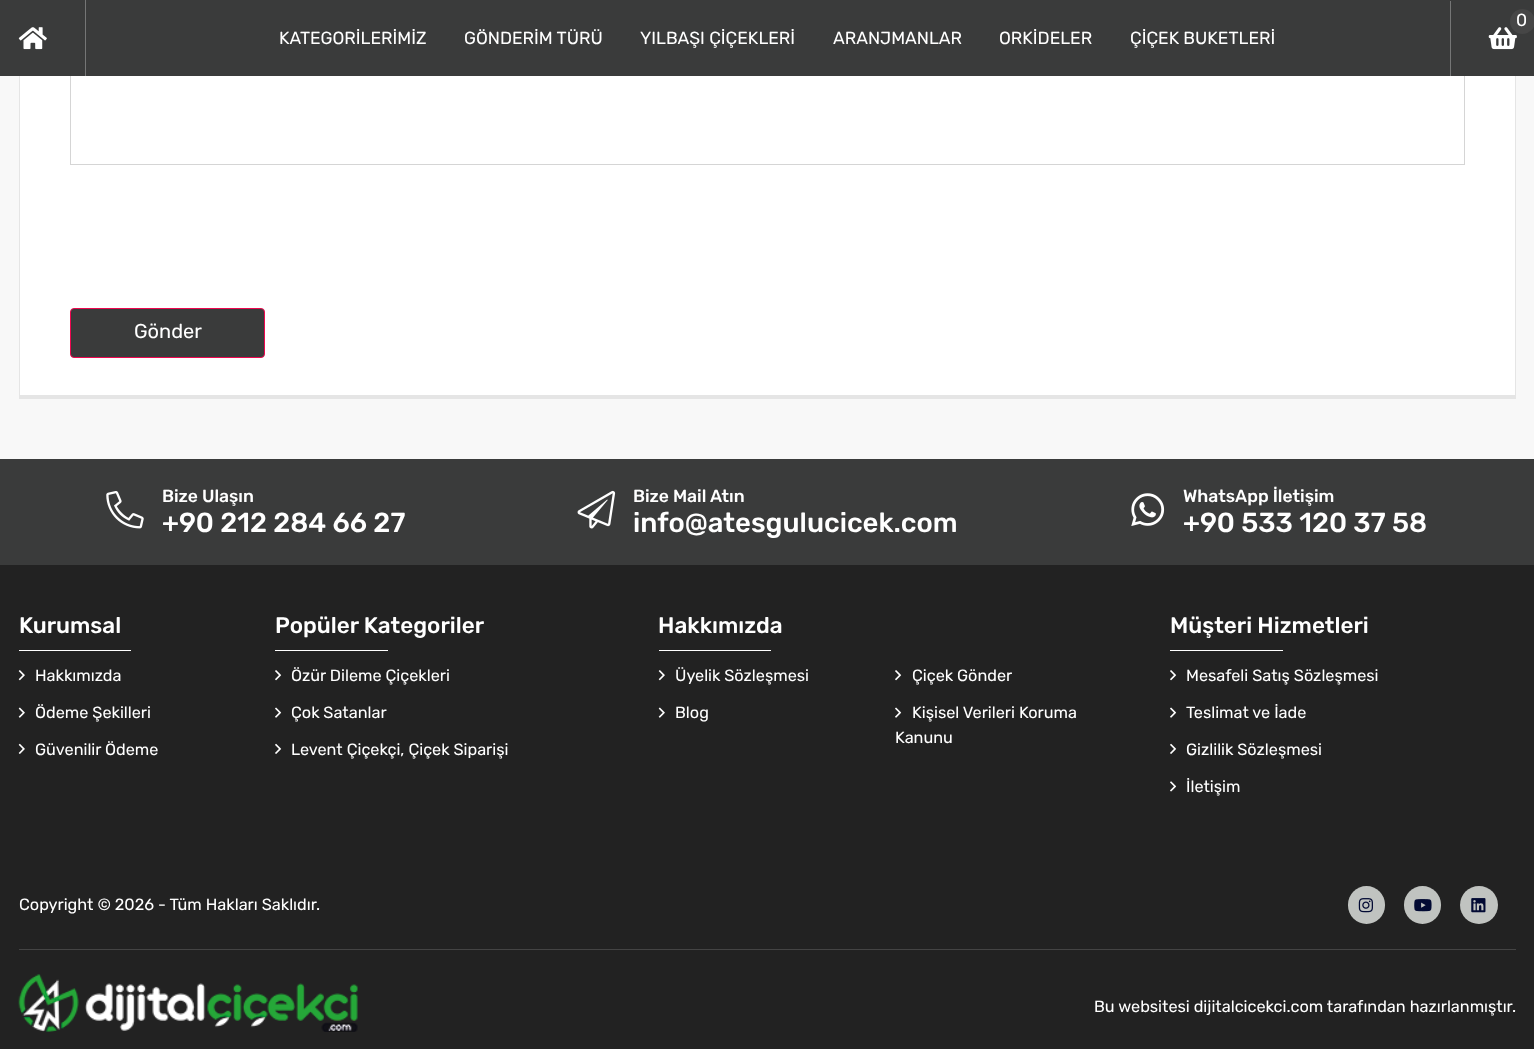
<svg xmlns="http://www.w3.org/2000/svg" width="1534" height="1049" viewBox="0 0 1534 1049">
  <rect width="100%" height="100%" fill="#f8f8f8"/>
  <rect x="20" y="76" width="1495" height="319" fill="#ffffff"/>
  <rect x="70.5" y="36.5" width="1394" height="128" fill="none" stroke="#d5d5d5"/>
  <rect x="0" y="0" width="1534" height="76" fill="#3a3b3b"/>
  <rect x="85" y="0" width="1" height="79" fill="#ffffff" fill-opacity="0.3"/>
  <image x="18" y="27" width="29" height="23" href="img1.png"/>
  <rect x="1450" y="1" width="1" height="75" fill="#757676"/>
  <image x="1488" y="27" width="29" height="23" href="img2.png"/>
  <circle cx="1522.5" cy="21.5" r="12.5" fill="#464646"/>
  <text x="1516" y="26" font-family="Rubik" font-size="17.5" fill="#ffffff">0</text>
  <text x="279" y="44" font-family="Rubik" font-size="17.5" fill="#ffffff">KATEGORİLERİMİZ</text>
  <text x="464" y="44" font-family="Rubik" font-size="17.5" fill="#ffffff">GÖNDERİM TÜRÜ</text>
  <text x="640" y="44" font-family="Rubik" font-size="17.5" fill="#ffffff">YILBAŞI ÇİÇEKLERİ</text>
  <text x="833" y="44" font-family="Rubik" font-size="17.5" fill="#ffffff">ARANJMANLAR</text>
  <text x="999" y="44" font-family="Rubik" font-size="17.5" fill="#ffffff">ORKİDELER</text>
  <text x="1130" y="44" font-family="Rubik" font-size="17.5" fill="#ffffff">ÇİÇEK BUKETLERİ</text>
  <rect x="1515" y="76" width="1" height="323" fill="#e5e5e5"/>
  <rect x="19" y="395" width="1497" height="4" fill="#e5e5e5"/>
  <rect x="19" y="76" width="1" height="323" fill="#e5e5e5"/>
  <rect x="70.5" y="308.5" width="194" height="49" rx="3.5" fill="#3a3b3b" stroke="#ed074f"/>
  <text x="134" y="338" font-family="Rubik" font-size="20" fill="#ffffff">Gönder</text>
  <rect x="0" y="459" width="1534" height="106" fill="#3a3b3b"/>
  <image x="106" y="491" width="38" height="38" href="img3.png"/>
  <text x="162" y="502" font-family="Rubik" font-size="17.5" font-weight="500" fill="#ffffff">Bize Ulaşın</text>
  <text x="162" y="532" font-family="Rubik" font-size="27.5" font-weight="500" fill="#ffffff">+90 212 284 66 27</text>
  <image x="577" y="490" width="39" height="39" href="img4.png"/>
  <text x="633" y="502" font-family="Rubik" font-size="17.5" font-weight="500" fill="#ffffff">Bize Mail Atın</text>
  <text x="633" y="532" font-family="Rubik" font-size="27.5" font-weight="500" fill="#ffffff">info@atesgulucicek.com</text>
  <image x="1131" y="493" width="34" height="33" href="img5.png"/>
  <text x="1183" y="502" font-family="Rubik" font-size="17.5" font-weight="500" fill="#ffffff">WhatsApp İletişim</text>
  <text x="1183" y="532" font-family="Rubik" font-size="27.5" font-weight="500" fill="#ffffff">+90 533 120 37 58</text>
  <rect x="0" y="565" width="1534" height="484" fill="#222222"/>
  <text x="19" y="633" font-family="Rubik" font-size="22.5" font-weight="500" fill="#ffffff">Kurumsal</text>
  <rect x="19" y="650" width="112" height="1" fill="#ffffff"/>
  <image x="18" y="670" width="7" height="11" href="img6.png"/>
  <text x="35" y="681" font-family="Rubik" font-size="16.25" fill="#ffffff">Hakkımızda</text>
  <image x="18" y="707" width="7" height="11" href="img7.png"/>
  <text x="35" y="718" font-family="Rubik" font-size="16.25" fill="#ffffff">Ödeme Şekilleri</text>
  <image x="18" y="743" width="7" height="11" href="img8.png"/>
  <text x="35" y="755" font-family="Rubik" font-size="16.25" fill="#ffffff">Güvenilir Ödeme</text>
  <text x="275" y="633" font-family="Rubik" font-size="22.5" font-weight="500" fill="#ffffff">Popüler Kategoriler</text>
  <rect x="275" y="650" width="113" height="1" fill="#ffffff"/>
  <image x="275" y="670" width="7" height="11" href="img9.png"/>
  <text x="291" y="681" font-family="Rubik" font-size="16.25" fill="#ffffff">Özür Dileme Çiçekleri</text>
  <image x="275" y="707" width="7" height="11" href="img10.png"/>
  <text x="291" y="718" font-family="Rubik" font-size="16.25" fill="#ffffff">Çok Satanlar</text>
  <image x="275" y="743" width="7" height="11" href="img11.png"/>
  <text x="291" y="755" font-family="Rubik" font-size="16.25" fill="#ffffff">Levent Çiçekçi, Çiçek Siparişi</text>
  <text x="658" y="633" font-family="Rubik" font-size="22.5" font-weight="500" fill="#ffffff">Hakkımızda</text>
  <rect x="659" y="650" width="112" height="1" fill="#ffffff"/>
  <image x="658" y="670" width="7" height="11" href="img6.png"/>
  <text x="675" y="681" font-family="Rubik" font-size="16.25" fill="#ffffff">Üyelik Sözleşmesi</text>
  <image x="895" y="670" width="7" height="11" href="img9.png"/>
  <text x="912" y="681" font-family="Rubik" font-size="16.25" fill="#ffffff">Çiçek Gönder</text>
  <image x="658" y="707" width="7" height="11" href="img7.png"/>
  <text x="675" y="718" font-family="Rubik" font-size="16.25" fill="#ffffff">Blog</text>
  <image x="895" y="707" width="7" height="11" href="img10.png"/>
  <text x="912" y="718" font-family="Rubik" font-size="16.25" fill="#ffffff">Kişisel Verileri Koruma</text>
  <text x="895" y="743" font-family="Rubik" font-size="16.25" fill="#ffffff">Kanunu</text>
  <text x="1170" y="633" font-family="Rubik" font-size="22.5" font-weight="500" fill="#ffffff">Müşteri Hizmetleri</text>
  <rect x="1170" y="650" width="113" height="1" fill="#ffffff"/>
  <image x="1170" y="670" width="7" height="11" href="img9.png"/>
  <text x="1186" y="681" font-family="Rubik" font-size="16.25" fill="#ffffff">Mesafeli Satış Sözleşmesi</text>
  <image x="1170" y="707" width="7" height="11" href="img10.png"/>
  <text x="1186" y="718" font-family="Rubik" font-size="16.25" fill="#ffffff">Teslimat ve İade</text>
  <image x="1170" y="743" width="7" height="11" href="img11.png"/>
  <text x="1186" y="755" font-family="Rubik" font-size="16.25" fill="#ffffff">Gizlilik Sözleşmesi</text>
  <image x="1170" y="781" width="7" height="11" href="img12.png"/>
  <text x="1186" y="792" font-family="Rubik" font-size="16.25" fill="#ffffff">İletişim</text>
  <text x="19" y="910" font-family="Rubik" font-size="16.25" fill="#ffffff">Copyright © 2026 - Tüm Hakları Saklıdır.</text>
  <rect x="1348" y="886" width="37" height="38" rx="18.5" fill="#c0c3c0"/>
  <image x="1358" y="898" width="15" height="15" href="img13.png"/>
  <rect x="1404" y="886" width="37" height="38" rx="18.5" fill="#c0c3c0"/>
  <image x="1414" y="899" width="18" height="13" href="img14.png"/>
  <circle cx="1479" cy="905" r="19" fill="#c0c3c0"/>
  <image x="1471" y="898" width="15" height="15" href="img15.png"/>
  <rect x="19" y="949" width="1497" height="1" fill="#444444"/>
  <image x="18" y="974" width="340" height="58" href="img16.png"/>
  <text x="1094" y="1012" font-family="Rubik" font-size="16.25" fill="#ffffff">Bu websitesi dijitalcicekci.com tarafından hazırlanmıştır.</text>
</svg>
